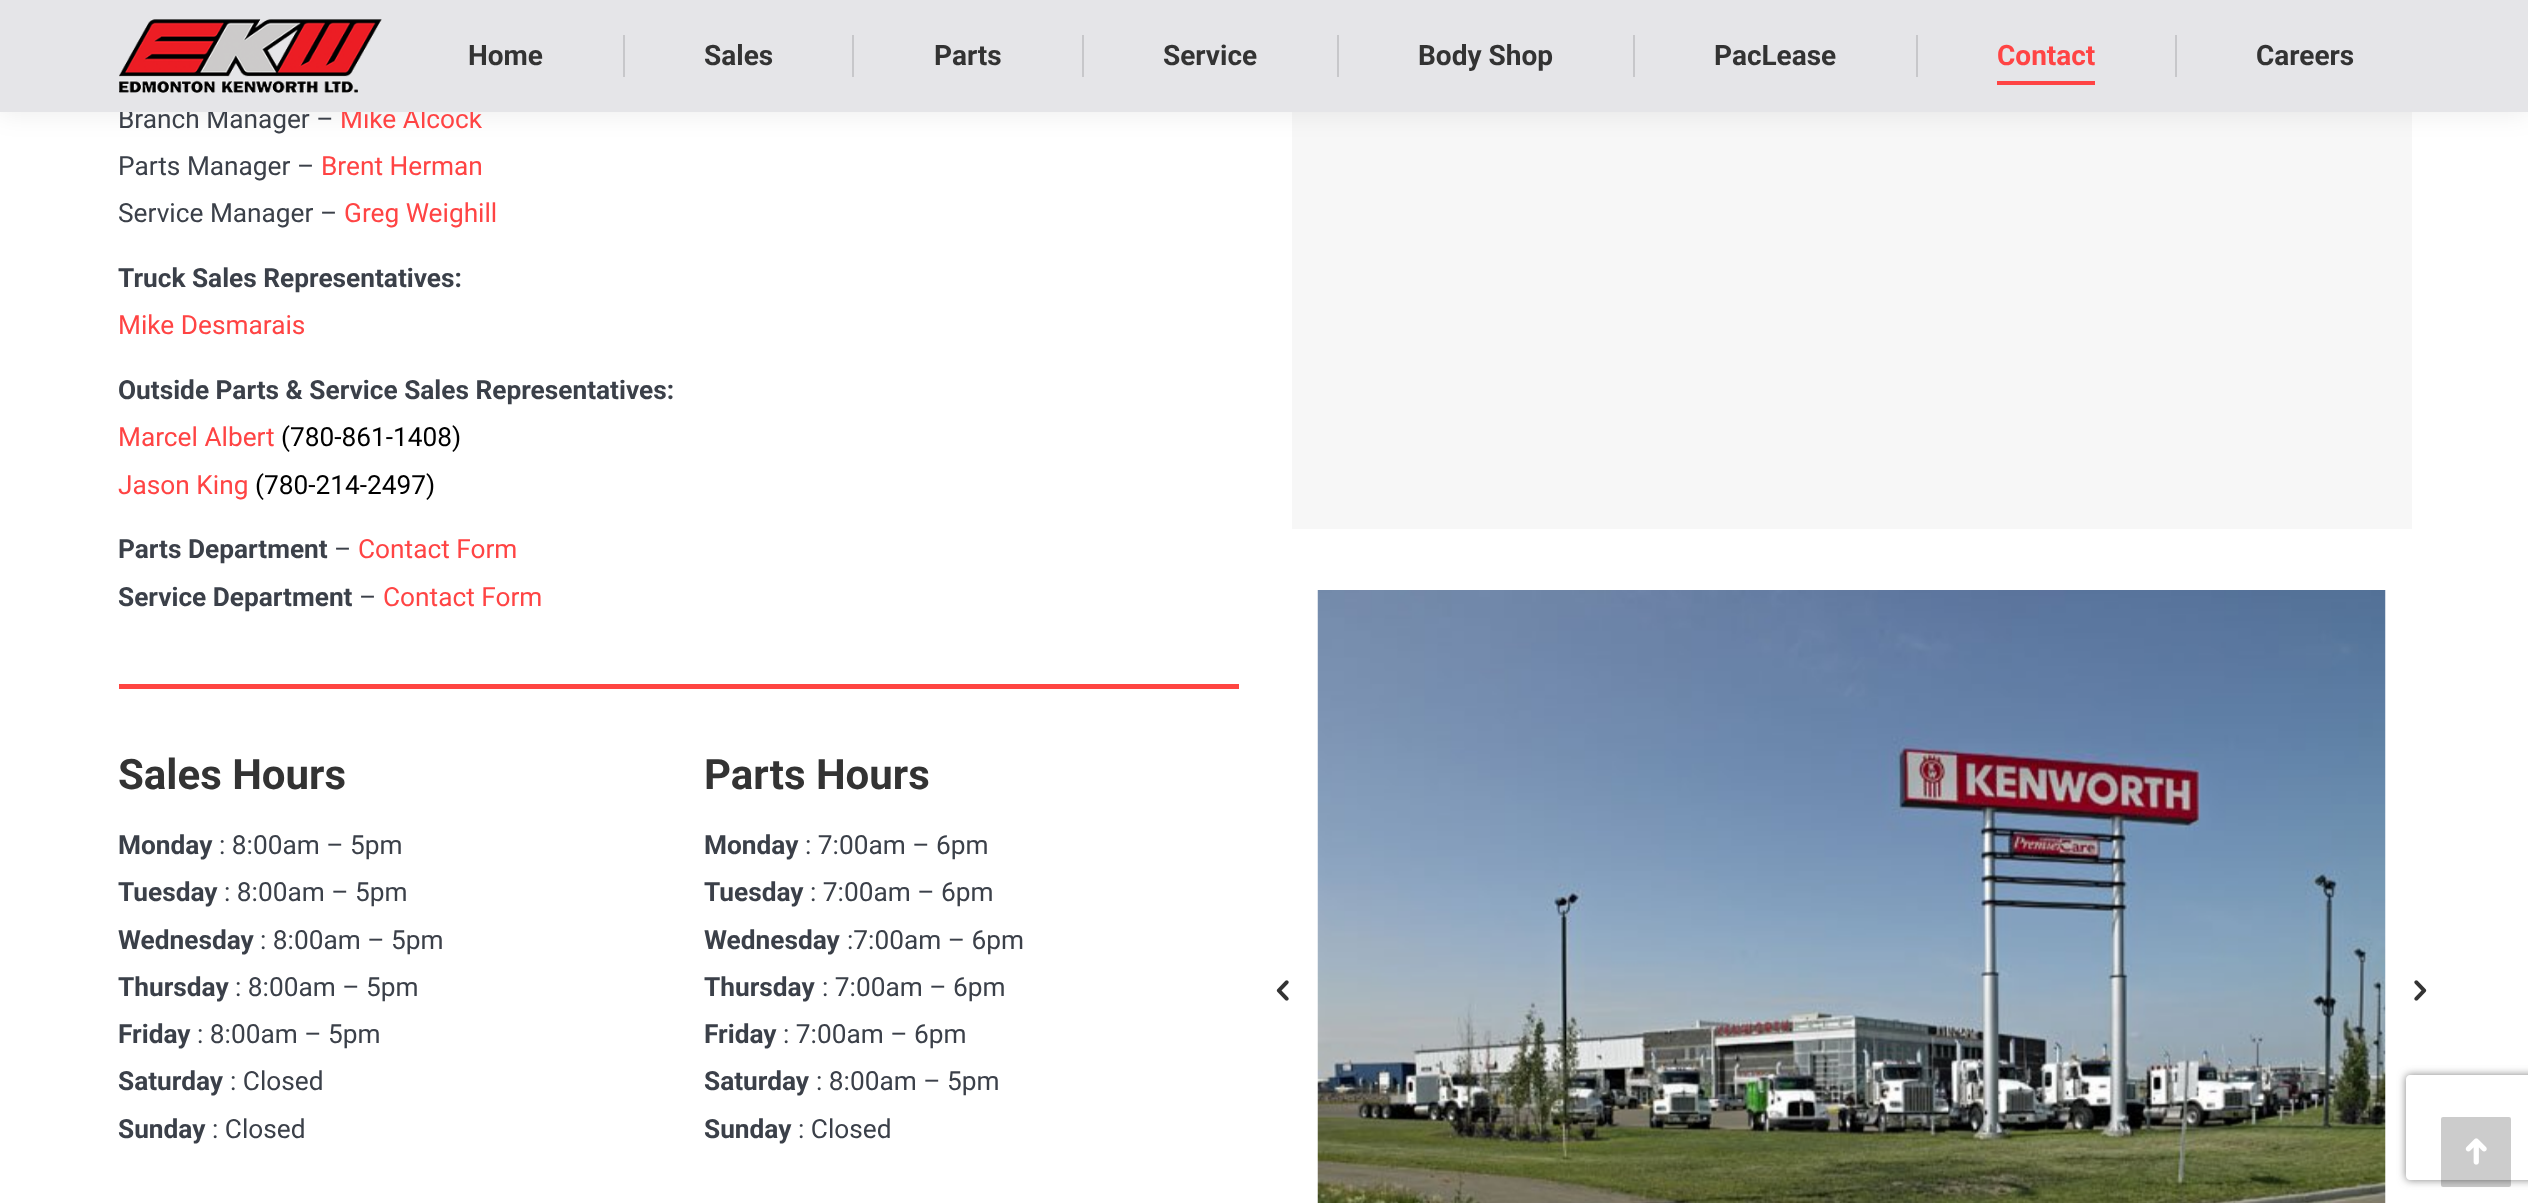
<svg xmlns="http://www.w3.org/2000/svg" width="2528" height="1203" viewBox="0 0 2528 1203">
  <defs>
    <filter id="blur1" x="-50%" y="-200%" width="200%" height="500%"><feGaussianBlur stdDeviation="13"/></filter>
    <clipPath id="clip1"><path d="M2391 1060H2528V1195H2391ZM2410 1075H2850C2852 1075 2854 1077 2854 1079V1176C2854 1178 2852 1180 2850 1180H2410C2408 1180 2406 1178 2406 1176V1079C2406 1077 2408 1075 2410 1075Z" clip-rule="evenodd"/></clipPath>
    <filter id="blur2" x="-50%" y="-200%" width="200%" height="500%"><feGaussianBlur stdDeviation="4.5"/></filter>
  </defs>
  <rect width="100%" height="100%" fill="#ffffff"/>
  <rect x="1292" y="112" width="1120" height="417" fill="#f7f7f7"/>
  <rect x="-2" y="-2" width="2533" height="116" fill="#000000" fill-opacity="0.07" filter="url(#blur1)"/>
  <text x="118" y="128" font-family="Roboto" font-size="26.25" fill="#3b4049">Branch Manager –</text>
  <text x="340" y="128" font-family="Roboto" font-size="26.25" fill="#ff4444">Mike Alcock</text>
  <rect x="0" y="0" width="2528" height="112" fill="#e5e5e8"/>
  <image x="119" y="19" width="263" height="74" href="img1.png"/>
  <text x="468" y="65" font-family="Roboto" font-size="28" font-weight="bold" fill="#333333">Home</text>
  <rect x="623" y="35" width="2" height="42" fill="#c7c7ca"/>
  <text x="704" y="65" font-family="Roboto" font-size="28" font-weight="bold" fill="#333333">Sales</text>
  <rect x="852" y="35" width="2" height="42" fill="#c7c7ca"/>
  <text x="934" y="65" font-family="Roboto" font-size="28" font-weight="bold" fill="#333333">Parts</text>
  <rect x="1082" y="35" width="2" height="42" fill="#c7c7ca"/>
  <text x="1163" y="65" font-family="Roboto" font-size="28" font-weight="bold" fill="#333333">Service</text>
  <rect x="1337" y="35" width="2" height="42" fill="#c7c7ca"/>
  <text x="1418" y="65" font-family="Roboto" font-size="28" font-weight="bold" fill="#333333">Body Shop</text>
  <rect x="1633" y="35" width="2" height="42" fill="#c7c7ca"/>
  <text x="1714" y="65" font-family="Roboto" font-size="28" font-weight="bold" fill="#333333">PacLease</text>
  <rect x="1916" y="35" width="2" height="42" fill="#c7c7ca"/>
  <text x="1997" y="65" font-family="Roboto" font-size="28" font-weight="bold" fill="#ff4444">Contact</text>
  <rect x="1997" y="81" width="98" height="4" fill="#ff4444"/>
  <rect x="2175" y="35" width="2" height="42" fill="#c7c7ca"/>
  <text x="2256" y="65" font-family="Roboto" font-size="28" font-weight="bold" fill="#333333">Careers</text>
  <text x="118" y="175" font-family="Roboto" font-size="26.25" fill="#3b4049">Parts Manager –</text>
  <text x="321" y="175" font-family="Roboto" font-size="26.25" fill="#ff4444">Brent Herman</text>
  <text x="118" y="222" font-family="Roboto" font-size="26.25" fill="#3b4049">Service Manager –</text>
  <text x="344" y="222" font-family="Roboto" font-size="26.25" fill="#ff4444">Greg Weighill</text>
  <text x="118" y="287" font-family="Roboto" font-size="26.25" font-weight="bold" fill="#3b4049">Truck Sales Representatives:</text>
  <text x="118" y="334" font-family="Roboto" font-size="26.25" fill="#ff4444">Mike Desmarais</text>
  <text x="118" y="399" font-family="Roboto" font-size="26.25" font-weight="bold" fill="#3b4049">Outside Parts &amp; Service Sales Representatives:</text>
  <text x="118" y="446" font-family="Roboto" font-size="26.25" fill="#ff4444">Marcel Albert</text>
  <text x="281" y="446" font-family="Roboto" font-size="26.25" fill="#000000">(780-861-1408)</text>
  <text x="118" y="494" font-family="Roboto" font-size="26.25" fill="#ff4444">Jason King</text>
  <text x="255" y="494" font-family="Roboto" font-size="26.25" fill="#000000">(780-214-2497)</text>
  <text x="118" y="558" font-family="Roboto" font-size="26.25" font-weight="bold" fill="#3b4049">Parts Department</text>
  <text x="334" y="558" font-family="Roboto" font-size="26.25" fill="#3b4049">–</text>
  <text x="358" y="558" font-family="Roboto" font-size="26.25" fill="#ff4444">Contact Form</text>
  <text x="118" y="606" font-family="Roboto" font-size="26.25" font-weight="bold" fill="#3b4049">Service Department</text>
  <text x="359" y="606" font-family="Roboto" font-size="26.25" fill="#3b4049">–</text>
  <text x="383" y="606" font-family="Roboto" font-size="26.25" fill="#ff4444">Contact Form</text>
  <rect x="119" y="684" width="1120" height="5" fill="#ff4541"/>
  <text x="118" y="789" font-family="Roboto" font-size="42" font-weight="bold" fill="#333333">Sales Hours</text>
  <text x="118" y="854" font-family="Roboto" font-size="26.25" font-weight="bold" fill="#3b4049">Monday</text>
  <text x="219" y="854" font-family="Roboto" font-size="26.25" fill="#3b4049">: 8:00am – 5pm</text>
  <text x="118" y="901" font-family="Roboto" font-size="26.25" font-weight="bold" fill="#3b4049">Tuesday</text>
  <text x="224" y="901" font-family="Roboto" font-size="26.25" fill="#3b4049">: 8:00am – 5pm</text>
  <text x="118" y="949" font-family="Roboto" font-size="26.25" font-weight="bold" fill="#3b4049">Wednesday</text>
  <text x="260" y="949" font-family="Roboto" font-size="26.25" fill="#3b4049">: 8:00am – 5pm</text>
  <text x="118" y="996" font-family="Roboto" font-size="26.25" font-weight="bold" fill="#3b4049">Thursday</text>
  <text x="235" y="996" font-family="Roboto" font-size="26.25" fill="#3b4049">: 8:00am – 5pm</text>
  <text x="118" y="1043" font-family="Roboto" font-size="26.25" font-weight="bold" fill="#3b4049">Friday</text>
  <text x="197" y="1043" font-family="Roboto" font-size="26.25" fill="#3b4049">: 8:00am – 5pm</text>
  <text x="118" y="1090" font-family="Roboto" font-size="26.25" font-weight="bold" fill="#3b4049">Saturday</text>
  <text x="230" y="1090" font-family="Roboto" font-size="26.25" fill="#3b4049">: Closed</text>
  <text x="118" y="1138" font-family="Roboto" font-size="26.25" font-weight="bold" fill="#3b4049">Sunday</text>
  <text x="212" y="1138" font-family="Roboto" font-size="26.25" fill="#3b4049">: Closed</text>
  <text x="704" y="789" font-family="Roboto" font-size="42" font-weight="bold" fill="#333333">Parts Hours</text>
  <text x="704" y="854" font-family="Roboto" font-size="26.25" font-weight="bold" fill="#3b4049">Monday</text>
  <text x="805" y="854" font-family="Roboto" font-size="26.25" fill="#3b4049">: 7:00am – 6pm</text>
  <text x="704" y="901" font-family="Roboto" font-size="26.25" font-weight="bold" fill="#3b4049">Tuesday</text>
  <text x="810" y="901" font-family="Roboto" font-size="26.25" fill="#3b4049">: 7:00am – 6pm</text>
  <text x="704" y="949" font-family="Roboto" font-size="26.25" font-weight="bold" fill="#3b4049">Wednesday</text>
  <text x="847" y="949" font-family="Roboto" font-size="26.25" fill="#3b4049">:7:00am – 6pm</text>
  <text x="704" y="996" font-family="Roboto" font-size="26.25" font-weight="bold" fill="#3b4049">Thursday</text>
  <text x="822" y="996" font-family="Roboto" font-size="26.25" fill="#3b4049">: 7:00am – 6pm</text>
  <text x="704" y="1043" font-family="Roboto" font-size="26.25" font-weight="bold" fill="#3b4049">Friday</text>
  <text x="783" y="1043" font-family="Roboto" font-size="26.25" fill="#3b4049">: 7:00am – 6pm</text>
  <text x="704" y="1090" font-family="Roboto" font-size="26.25" font-weight="bold" fill="#3b4049">Saturday</text>
  <text x="816" y="1090" font-family="Roboto" font-size="26.25" fill="#3b4049">: 8:00am – 5pm</text>
  <text x="704" y="1138" font-family="Roboto" font-size="26.25" font-weight="bold" fill="#3b4049">Sunday</text>
  <text x="798" y="1138" font-family="Roboto" font-size="26.25" fill="#3b4049">: Closed</text>
  <image x="1276" y="980" width="13" height="21" href="img2.png"/>
  <image x="1317" y="590" width="1069" height="613" href="img3.png"/>
  <image x="2414" y="980" width="13" height="21" href="img4.png"/>
  <g clip-path="url(#clip1)">
    <rect x="2406" y="1075" width="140" height="105" rx="4" fill="#808080" filter="url(#blur2)"/>
  </g>
  <rect x="2441" y="1117" width="70" height="70" rx="2" fill="#000000" fill-opacity="0.2"/>
  <image x="2465" y="1138" width="22" height="27" href="img5.png"/>
</svg>
